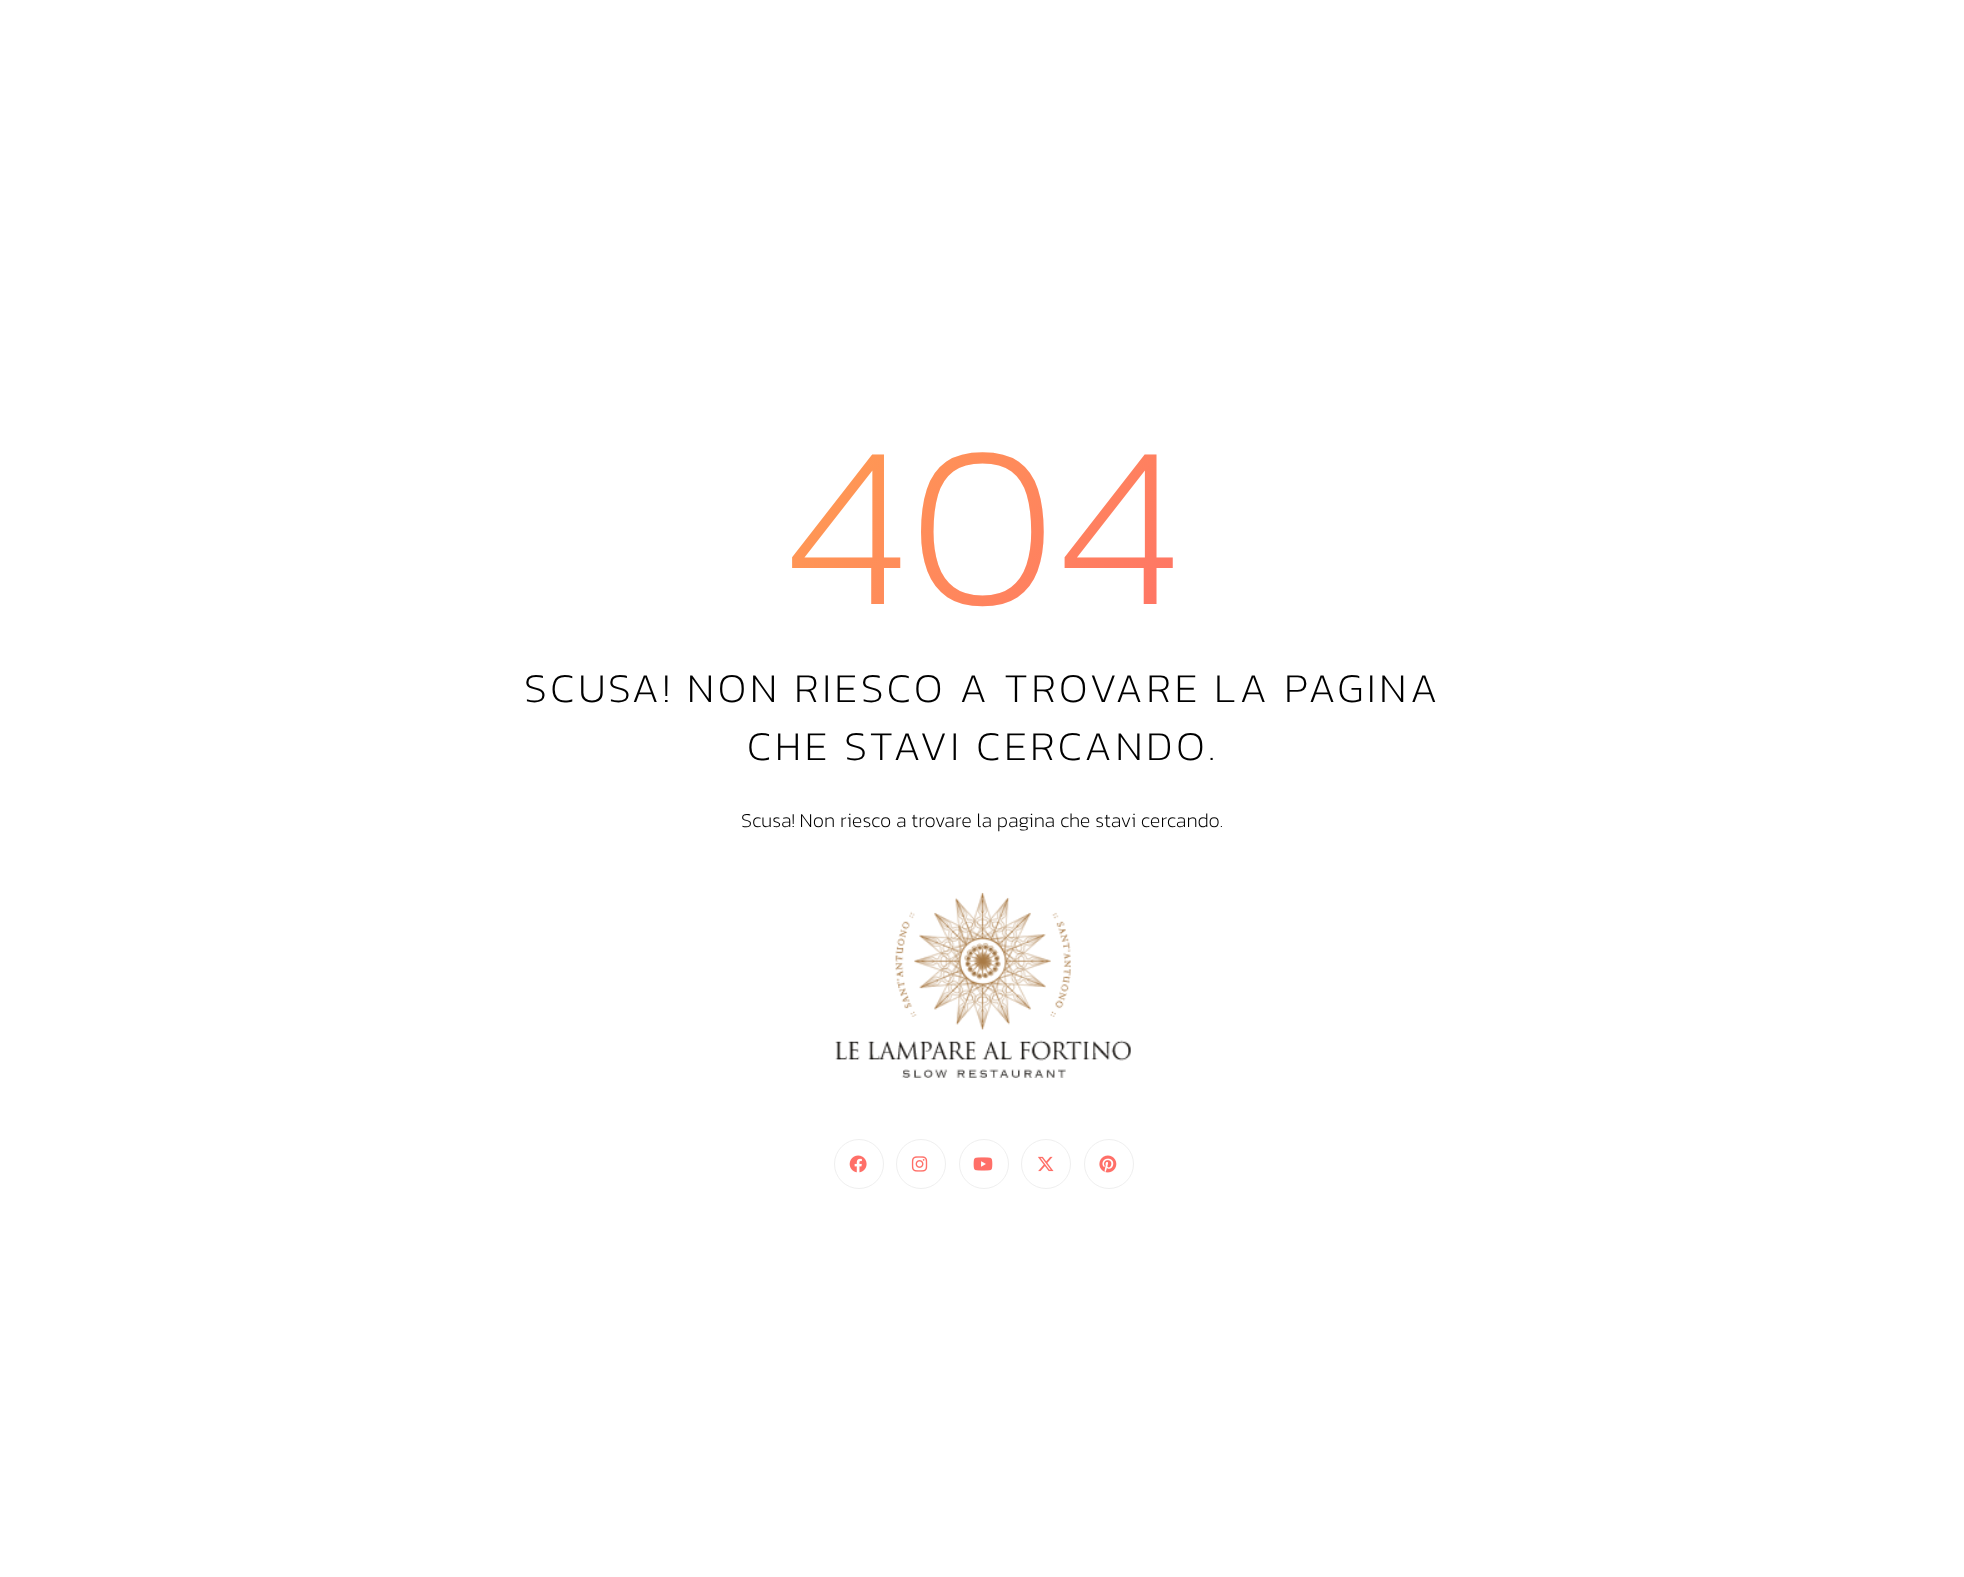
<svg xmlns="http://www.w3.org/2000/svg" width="1964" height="1577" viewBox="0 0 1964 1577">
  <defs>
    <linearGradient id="g1" gradientUnits="userSpaceOnUse" x1="786" y1="357" x2="1179" y2="687"><stop offset="0" stop-color="#ffa34f"/><stop offset="1" stop-color="#ff6f68"/></linearGradient>
  </defs>
  <rect width="100%" height="100%" fill="#ffffff"/>
  <text x="784" y="604" font-family="Kanit" font-size="232" font-weight="200" fill="url(#g1)">404</text>
  <text x="524" y="702" font-family="Kanit" font-size="41.25" font-weight="200" letter-spacing="3.75" fill="#000000">SCUSA! NON RIESCO A TROVARE LA PAGINA</text>
  <text x="747" y="760" font-family="Kanit" font-size="41.25" font-weight="200" letter-spacing="3.75" fill="#000000">CHE STAVI CERCANDO.</text>
  <text x="741" y="827" font-family="Kanit" font-size="20" font-weight="200" fill="#000000">Scusa! Non riesco a trovare la pagina che stavi cercando.</text>
  <image x="835" y="892" width="296" height="186" href="img1.png"/>
  <circle cx="859" cy="1164" r="24.5" fill="none" stroke="#efefef"/>
  <image x="849" y="1155" width="18" height="18" href="img2.png"/>
  <circle cx="921" cy="1164" r="24.5" fill="none" stroke="#efefef"/>
  <image x="911" y="1156" width="17" height="16" href="img3.png"/>
  <circle cx="984" cy="1164" r="24.5" fill="none" stroke="#efefef"/>
  <image x="973" y="1157" width="20" height="14" href="img4.png"/>
  <circle cx="1046" cy="1164" r="24.5" fill="none" stroke="#efefef"/>
  <image x="1038" y="1156" width="16" height="16" href="img5.png"/>
  <circle cx="1109" cy="1164" r="24.5" fill="none" stroke="#efefef"/>
  <image x="1099" y="1155" width="18" height="18" href="img6.png"/>
</svg>
